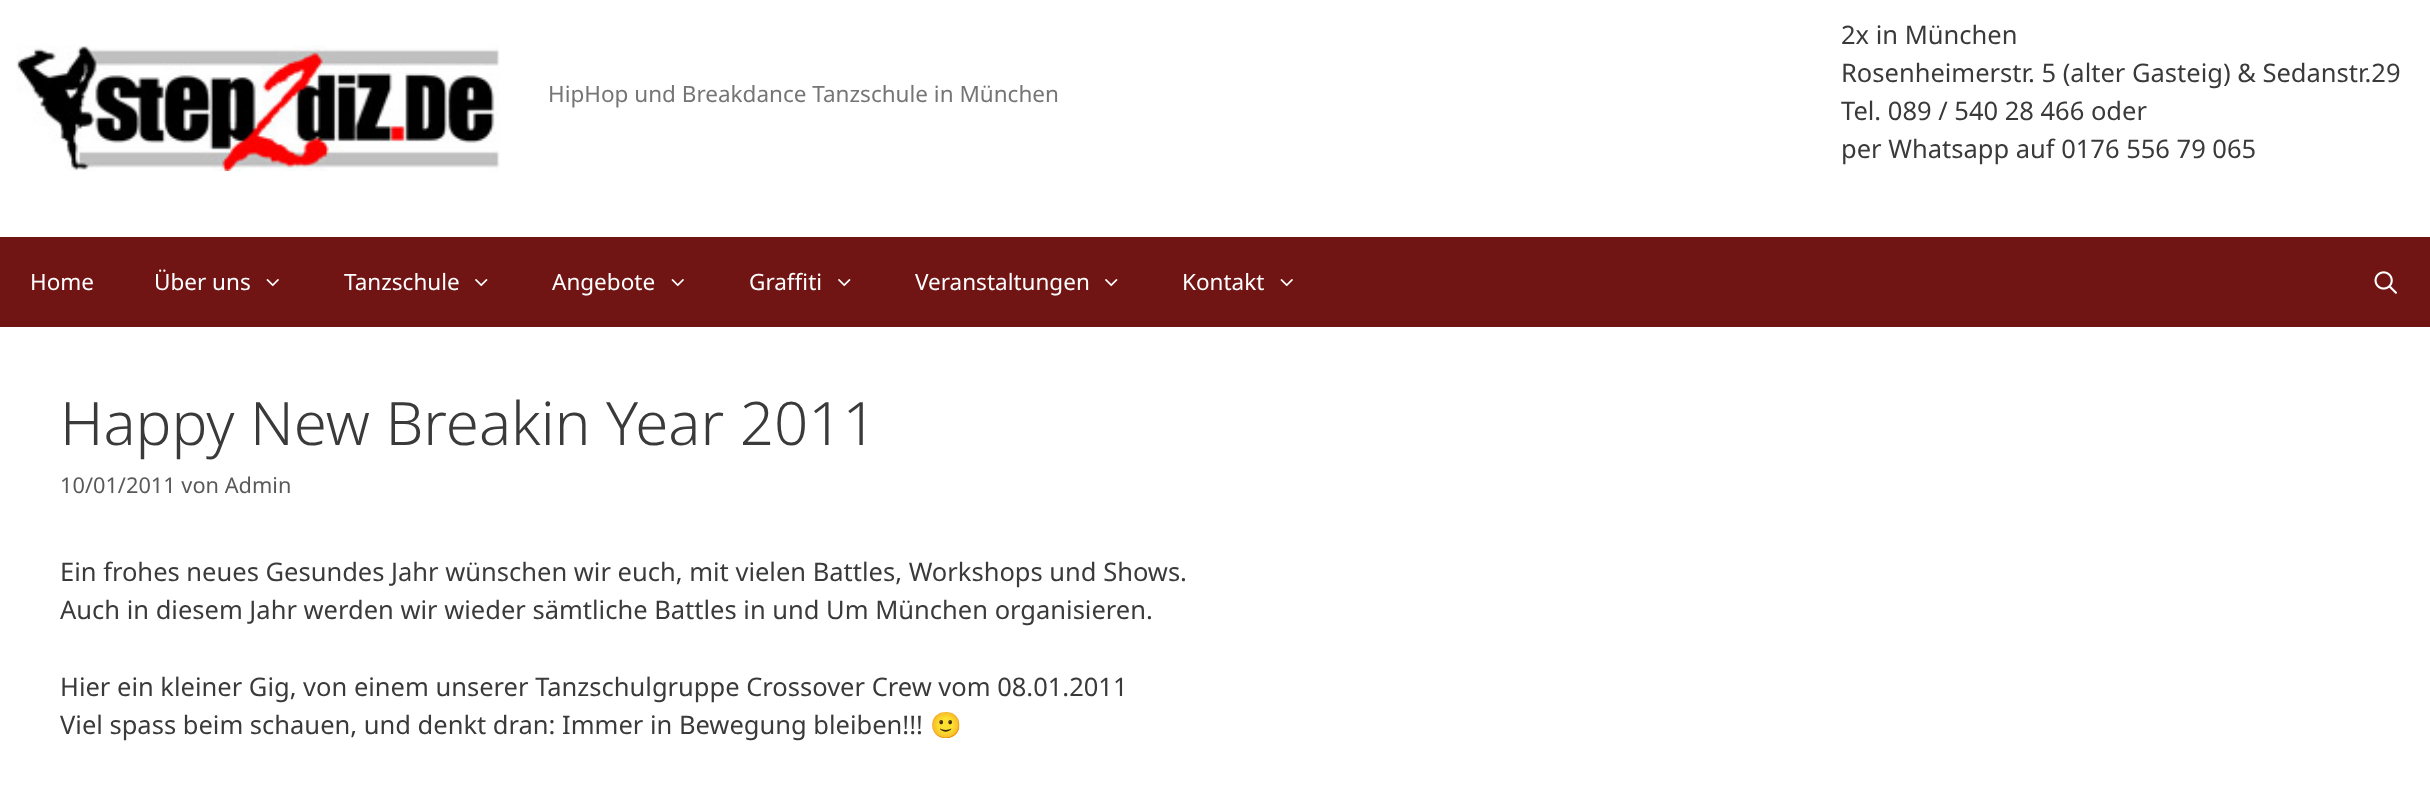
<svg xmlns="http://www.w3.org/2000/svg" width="2430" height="787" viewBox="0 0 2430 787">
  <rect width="100%" height="100%" fill="#711414"/>
  <rect x="0" y="0" width="2430" height="237" fill="#ffffff"/>
  <image x="16" y="45" width="484" height="126" href="img1.png"/>
  <text x="548" y="102" font-family="Noto Sans" font-size="22.5" fill="#757575">HipHop und Breakdance Tanzschule in München</text>
  <text x="1841" y="44" font-family="Noto Sans" font-size="25.5" fill="#3a3a3a">2x in München</text>
  <text x="1841" y="82" font-family="Noto Sans" font-size="25.5" fill="#3a3a3a">Rosenheimerstr. 5 (alter Gasteig) &amp; Sedanstr.29</text>
  <text x="1841" y="120" font-family="Noto Sans" font-size="25.5" fill="#3a3a3a">Tel. 089 / 540 28 466 oder</text>
  <text x="1841" y="158" font-family="Noto Sans" font-size="25.5" fill="#3a3a3a">per Whatsapp auf 0176 556 79 065</text>
  <text x="30" y="290" font-family="Noto Sans" font-size="22.5" fill="#ffffff">Home</text>
  <text x="154" y="290" font-family="Noto Sans" font-size="22.5" fill="#ffffff">Über uns</text>
  <image x="266" y="279" width="13" height="8" href="img2.png"/>
  <text x="344" y="290" font-family="Noto Sans" font-size="22.5" fill="#ffffff">Tanzschule</text>
  <image x="475" y="279" width="13" height="8" href="img3.png"/>
  <text x="552" y="290" font-family="Noto Sans" font-size="22.5" fill="#ffffff">Angebote</text>
  <image x="671" y="279" width="13" height="8" href="img2.png"/>
  <text x="749" y="290" font-family="Noto Sans" font-size="22.5" fill="#ffffff">Graffiti</text>
  <image x="838" y="279" width="13" height="8" href="img3.png"/>
  <text x="915" y="290" font-family="Noto Sans" font-size="22.5" fill="#ffffff">Veranstaltungen</text>
  <image x="1105" y="279" width="13" height="8" href="img3.png"/>
  <text x="1182" y="290" font-family="Noto Sans" font-size="22.5" fill="#ffffff">Kontakt</text>
  <image x="1280" y="279" width="13" height="8" href="img2.png"/>
  <image x="2374" y="271" width="23" height="23" href="img4.png"/>
  <rect x="0" y="327" width="2430" height="460" fill="#ffffff"/>
  <text x="60" y="445" font-family="Noto Sans" font-size="60" font-weight="300" fill="#3a3a3a">Happy New Breakin Year 2011</text>
  <text x="60" y="493" font-family="Noto Sans" font-size="21.75" fill="#595959">10/01/2011 von Admin</text>
  <text x="60" y="581" font-family="Noto Sans" font-size="25.5" fill="#3a3a3a">Ein frohes neues Gesundes Jahr wünschen wir euch, mit vielen Battles, Workshops und Shows.</text>
  <text x="60" y="619" font-family="Noto Sans" font-size="25.5" fill="#3a3a3a">Auch in diesem Jahr werden wir wieder sämtliche Battles in und Um München organisieren.</text>
  <text x="60" y="696" font-family="Noto Sans" font-size="25.5" fill="#3a3a3a">Hier ein kleiner Gig, von einem unserer Tanzschulgruppe Crossover Crew vom 08.01.2011</text>
  <text x="60" y="734" font-family="Noto Sans" font-size="25.5" fill="#3a3a3a">Viel spass beim schauen, und denkt dran: Immer in Bewegung bleiben!!!</text>
  <text x="930" y="734" font-family="Noto Color Emoji" font-size="25.5" fill="#3a3a3a">🙂</text>
</svg>
